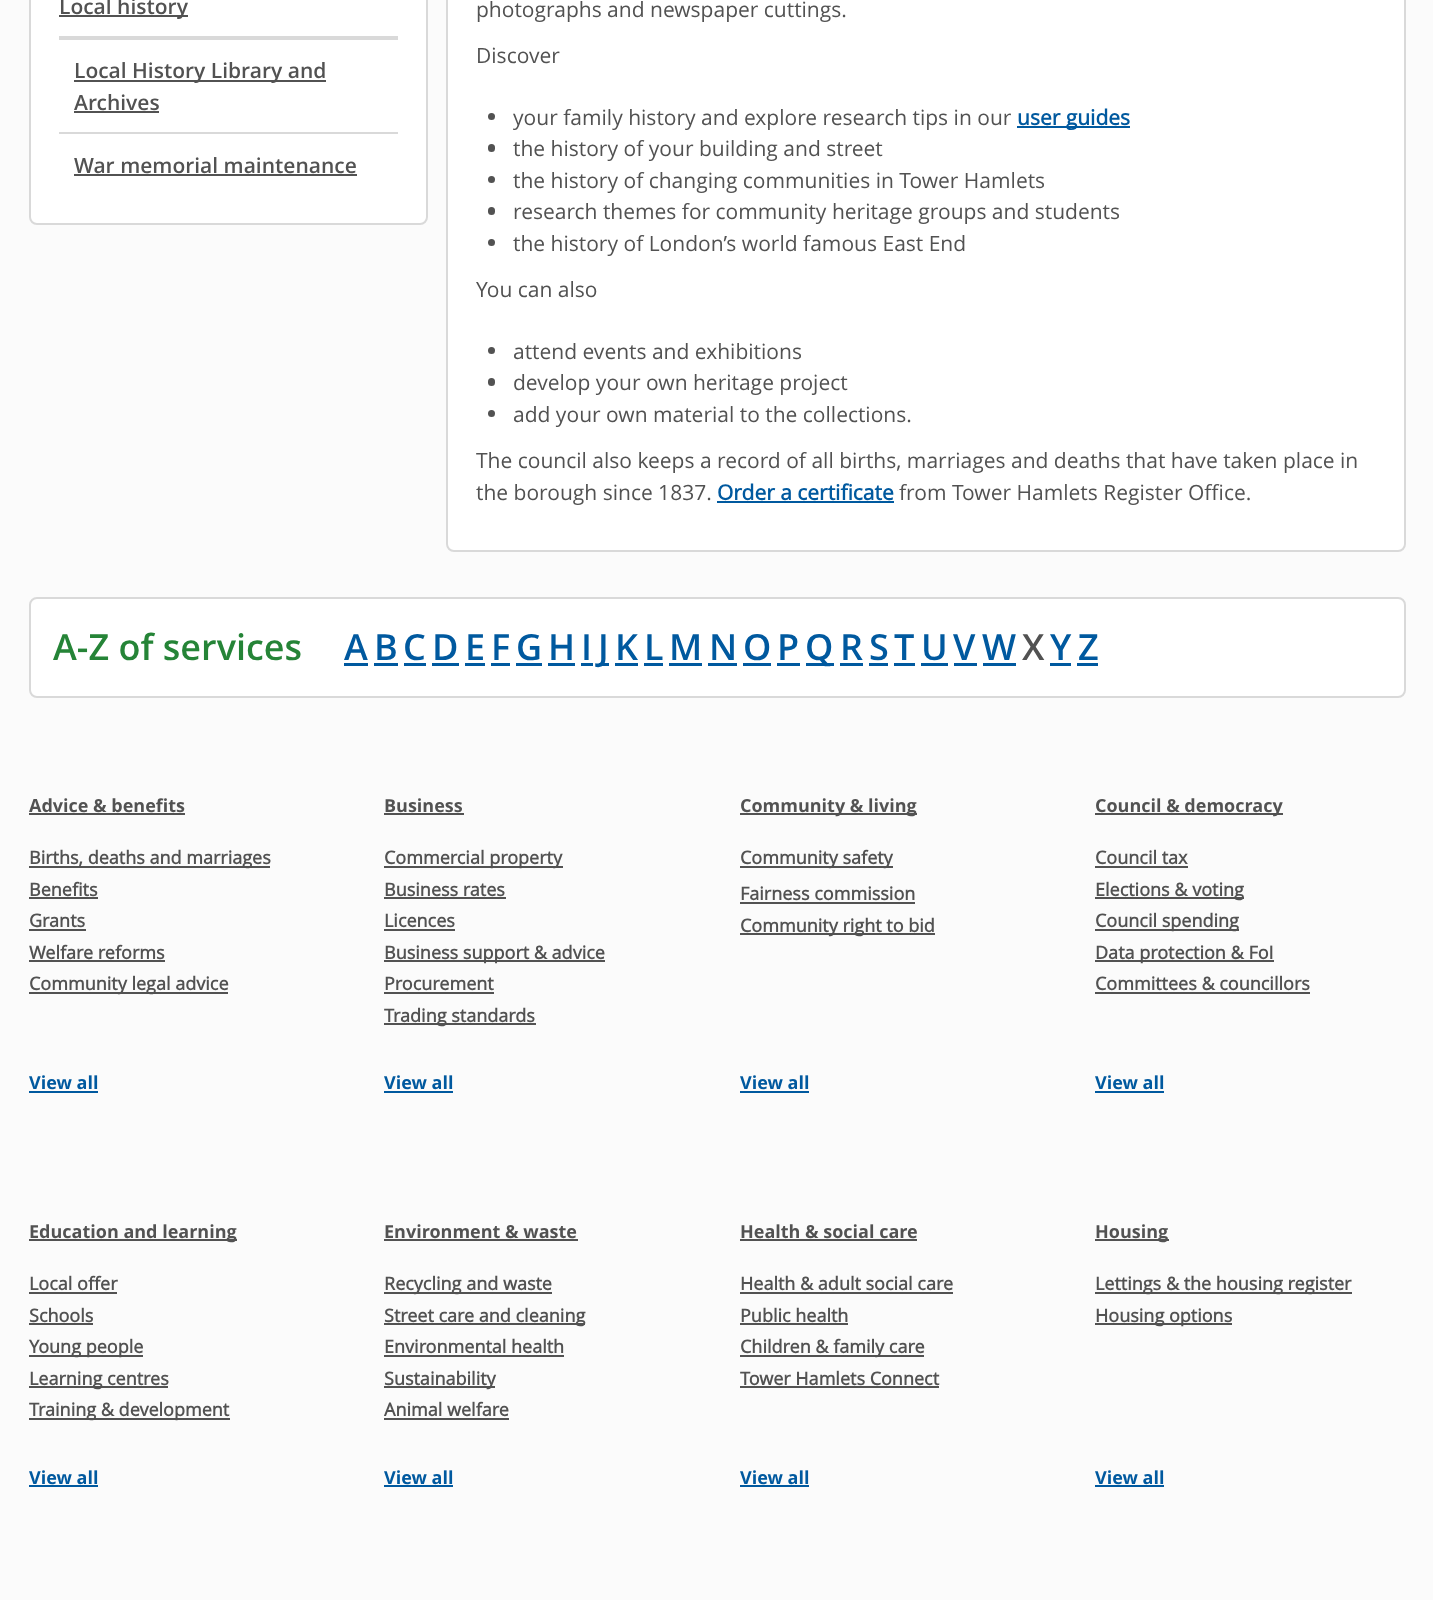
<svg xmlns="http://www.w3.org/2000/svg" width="1433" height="1600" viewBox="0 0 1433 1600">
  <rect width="100%" height="100%" fill="#fbfbfb"/>
  <rect x="30" y="-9" width="397" height="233" rx="7" fill="#ffffff" stroke="#d9d9d9" stroke-width="2"/>
  <rect x="59" y="15" width="129" height="2" fill="#525252"/>
  <text x="59" y="14" font-family="Open Sans" font-size="21" font-weight="600" fill="#525252">Local history</text>
  <rect x="59" y="36" width="339" height="4" fill="#d9d9d9"/>
  <rect x="74" y="80" width="252" height="2" fill="#525252"/>
  <text x="74" y="78" font-family="Open Sans" font-size="21" font-weight="600" fill="#525252">Local History Library and</text>
  <text x="74" y="110" font-family="Open Sans" font-size="21" font-weight="600" fill="#525252">Archives</text>
  <rect x="74" y="111" width="85" height="2" fill="#525252"/>
  <rect x="59" y="132" width="339" height="2" fill="#d9d9d9"/>
  <text x="74" y="173" font-family="Open Sans" font-size="21" font-weight="600" fill="#525252">War memorial maintenance</text>
  <rect x="74" y="174" width="283" height="2" fill="#525252"/>
  <rect x="447" y="-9" width="958" height="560" rx="7" fill="#ffffff" stroke="#d9d9d9" stroke-width="2"/>
  <text x="476" y="17" font-family="Open Sans" font-size="21" fill="#525252">photographs and newspaper cuttings.</text>
  <text x="476" y="63" font-family="Open Sans" font-size="21" fill="#525252">Discover</text>
  <circle cx="491.5" cy="116.5" r="3.5" fill="#525252"/>
  <text x="513" y="125" font-family="Open Sans" font-size="21" fill="#525252">your family history and explore research tips in our</text>
  <rect x="1017" y="126" width="113" height="2" fill="#00599f"/>
  <text x="1017" y="125" font-family="Open Sans" font-size="21" font-weight="bold" fill="#00599f">user guides</text>
  <rect x="488" y="144" width="7" height="8" rx="3.5" fill="#525252"/>
  <text x="513" y="156" font-family="Open Sans" font-size="21" fill="#525252">the history of your building and street</text>
  <circle cx="491.5" cy="179.5" r="3.5" fill="#525252"/>
  <text x="513" y="188" font-family="Open Sans" font-size="21" fill="#525252">the history of changing communities in Tower Hamlets</text>
  <rect x="488" y="207" width="7" height="8" rx="3.5" fill="#525252"/>
  <text x="513" y="219" font-family="Open Sans" font-size="21" fill="#525252">research themes for community heritage groups and students</text>
  <circle cx="491.5" cy="242.5" r="3.5" fill="#525252"/>
  <text x="513" y="251" font-family="Open Sans" font-size="21" fill="#525252">the history of London’s world famous East End</text>
  <text x="476" y="297" font-family="Open Sans" font-size="21" fill="#525252">You can also</text>
  <circle cx="491.5" cy="350.5" r="3.5" fill="#525252"/>
  <text x="513" y="359" font-family="Open Sans" font-size="21" fill="#525252">attend events and exhibitions</text>
  <rect x="488" y="378" width="7" height="8" rx="3.5" fill="#525252"/>
  <text x="513" y="390" font-family="Open Sans" font-size="21" fill="#525252">develop your own heritage project</text>
  <circle cx="491.5" cy="413.5" r="3.5" fill="#525252"/>
  <text x="513" y="422" font-family="Open Sans" font-size="21" fill="#525252">add your own material to the collections.</text>
  <text x="476" y="468" font-family="Open Sans" font-size="21" fill="#525252">The council also keeps a record of all births, marriages and deaths that have taken place in</text>
  <text x="476" y="500" font-family="Open Sans" font-size="21" fill="#525252">the borough since 1837.</text>
  <text x="717" y="500" font-family="Open Sans" font-size="21" font-weight="bold" fill="#00599f">Order a certificate</text>
  <rect x="717" y="501" width="177" height="2" fill="#00599f"/>
  <text x="899" y="500" font-family="Open Sans" font-size="21" fill="#525252">from Tower Hamlets Register Office.</text>
  <rect x="30" y="598" width="1375" height="99" rx="7" fill="#ffffff" stroke="#d9d9d9" stroke-width="2"/>
  <text x="53" y="660" font-family="Open Sans" font-size="36" font-weight="600" fill="#258437">A-Z of services</text>
  <text x="344" y="660" font-family="Open Sans" font-size="36" font-weight="600" fill="#00599f">A</text>
  <rect x="344" y="663" width="24" height="3" fill="#00599f"/>
  <text x="374" y="660" font-family="Open Sans" font-size="36" font-weight="600" fill="#00599f">B</text>
  <rect x="374" y="663" width="24" height="3" fill="#00599f"/>
  <text x="403" y="660" font-family="Open Sans" font-size="36" font-weight="600" fill="#00599f">C</text>
  <rect x="404" y="663" width="22" height="3" fill="#00599f"/>
  <text x="432" y="660" font-family="Open Sans" font-size="36" font-weight="600" fill="#00599f">D</text>
  <rect x="432" y="663" width="27" height="3" fill="#00599f"/>
  <text x="465" y="660" font-family="Open Sans" font-size="36" font-weight="600" fill="#00599f">E</text>
  <rect x="465" y="663" width="20" height="3" fill="#00599f"/>
  <text x="491" y="660" font-family="Open Sans" font-size="36" font-weight="600" fill="#00599f">F</text>
  <rect x="491" y="663" width="19" height="3" fill="#00599f"/>
  <text x="516" y="660" font-family="Open Sans" font-size="36" font-weight="600" fill="#00599f">G</text>
  <rect x="516" y="663" width="26" height="3" fill="#00599f"/>
  <text x="548" y="660" font-family="Open Sans" font-size="36" font-weight="600" fill="#00599f">H</text>
  <rect x="548" y="663" width="27" height="3" fill="#00599f"/>
  <text x="581" y="660" font-family="Open Sans" font-size="36" font-weight="600" fill="#00599f">I</text>
  <rect x="581" y="663" width="12" height="3" fill="#00599f"/>
  <rect x="599" y="663" width="10" height="3" fill="#00599f"/>
  <text x="598" y="660" font-family="Open Sans" font-size="36" font-weight="600" fill="#00599f">J</text>
  <text x="615" y="660" font-family="Open Sans" font-size="36" font-weight="600" fill="#00599f">K</text>
  <rect x="615" y="663" width="23" height="3" fill="#00599f"/>
  <text x="644" y="660" font-family="Open Sans" font-size="36" font-weight="600" fill="#00599f">L</text>
  <rect x="644" y="663" width="19" height="3" fill="#00599f"/>
  <text x="669" y="660" font-family="Open Sans" font-size="36" font-weight="600" fill="#00599f">M</text>
  <rect x="669" y="663" width="33" height="3" fill="#00599f"/>
  <text x="709" y="660" font-family="Open Sans" font-size="36" font-weight="600" fill="#00599f">N</text>
  <rect x="708" y="663" width="29" height="3" fill="#00599f"/>
  <text x="743" y="660" font-family="Open Sans" font-size="36" font-weight="600" fill="#00599f">O</text>
  <rect x="743" y="663" width="28" height="3" fill="#00599f"/>
  <text x="777" y="660" font-family="Open Sans" font-size="36" font-weight="600" fill="#00599f">P</text>
  <rect x="777" y="663" width="23" height="3" fill="#00599f"/>
  <rect x="806" y="663" width="28" height="3" fill="#00599f"/>
  <text x="805" y="660" font-family="Open Sans" font-size="36" font-weight="600" fill="#00599f">Q</text>
  <text x="840" y="660" font-family="Open Sans" font-size="36" font-weight="600" fill="#00599f">R</text>
  <rect x="840" y="663" width="23" height="3" fill="#00599f"/>
  <text x="869" y="660" font-family="Open Sans" font-size="36" font-weight="600" fill="#00599f">S</text>
  <rect x="869" y="663" width="19" height="3" fill="#00599f"/>
  <text x="894" y="660" font-family="Open Sans" font-size="36" font-weight="600" fill="#00599f">T</text>
  <rect x="894" y="663" width="21" height="3" fill="#00599f"/>
  <text x="921" y="660" font-family="Open Sans" font-size="36" font-weight="600" fill="#00599f">U</text>
  <rect x="921" y="663" width="27" height="3" fill="#00599f"/>
  <text x="953" y="660" font-family="Open Sans" font-size="36" font-weight="600" fill="#00599f">V</text>
  <rect x="954" y="663" width="23" height="3" fill="#00599f"/>
  <text x="982" y="660" font-family="Open Sans" font-size="36" font-weight="600" fill="#00599f">W</text>
  <rect x="983" y="663" width="33" height="3" fill="#00599f"/>
  <text x="1022" y="660" font-family="Open Sans" font-size="36" font-weight="600" fill="#525252">X</text>
  <text x="1050" y="660" font-family="Open Sans" font-size="36" font-weight="600" fill="#00599f">Y</text>
  <rect x="1050" y="663" width="21" height="3" fill="#00599f"/>
  <text x="1078" y="660" font-family="Open Sans" font-size="36" font-weight="600" fill="#00599f">Z</text>
  <rect x="1077" y="663" width="21" height="3" fill="#00599f"/>
  <text x="29" y="812" font-family="'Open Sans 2'" font-size="18" font-weight="bold" fill="#525252">Advice &amp; benefits</text>
  <rect x="29" y="813" width="156" height="2" fill="#525252"/>
  <rect x="29" y="866" width="241" height="2" fill="#525252"/>
  <text x="29" y="864" font-family="Open Sans" font-size="18" font-weight="bold" fill="#525252">Births, deaths and marriages</text>
  <text x="29" y="896" font-family="Open Sans" font-size="18" font-weight="bold" fill="#525252">Benefits</text>
  <rect x="29" y="897" width="69" height="2" fill="#525252"/>
  <text x="29" y="927" font-family="Open Sans" font-size="18" font-weight="bold" fill="#525252">Grants</text>
  <rect x="29" y="929" width="57" height="2" fill="#525252"/>
  <text x="29" y="959" font-family="Open Sans" font-size="18" font-weight="bold" fill="#525252">Welfare reforms</text>
  <rect x="29" y="960" width="136" height="2" fill="#525252"/>
  <rect x="29" y="992" width="199" height="2" fill="#525252"/>
  <text x="29" y="990" font-family="Open Sans" font-size="18" font-weight="bold" fill="#525252">Community legal advice</text>
  <text x="29" y="1089" font-family="'Open Sans 2'" font-size="18" font-weight="bold" fill="#00599f">View all</text>
  <rect x="29" y="1091" width="69" height="2" fill="#00599f"/>
  <text x="384" y="812" font-family="'Open Sans 2'" font-size="18" font-weight="bold" fill="#525252">Business</text>
  <rect x="384" y="813" width="80" height="2" fill="#525252"/>
  <rect x="384" y="866" width="179" height="2" fill="#525252"/>
  <text x="384" y="864" font-family="Open Sans" font-size="18" font-weight="bold" fill="#525252">Commercial property</text>
  <text x="384" y="896" font-family="Open Sans" font-size="18" font-weight="bold" fill="#525252">Business rates</text>
  <rect x="384" y="897" width="122" height="2" fill="#525252"/>
  <text x="384" y="927" font-family="Open Sans" font-size="18" font-weight="bold" fill="#525252">Licences</text>
  <rect x="384" y="929" width="71" height="2" fill="#525252"/>
  <rect x="384" y="960" width="221" height="2" fill="#525252"/>
  <text x="384" y="959" font-family="Open Sans" font-size="18" font-weight="bold" fill="#525252">Business support &amp; advice</text>
  <text x="384" y="990" font-family="Open Sans" font-size="18" font-weight="bold" fill="#525252">Procurement</text>
  <rect x="384" y="992" width="110" height="2" fill="#525252"/>
  <rect x="384" y="1023" width="152" height="2" fill="#525252"/>
  <text x="384" y="1022" font-family="Open Sans" font-size="18" font-weight="bold" fill="#525252">Trading standards</text>
  <text x="384" y="1089" font-family="'Open Sans 2'" font-size="18" font-weight="bold" fill="#00599f">View all</text>
  <rect x="384" y="1091" width="69" height="2" fill="#00599f"/>
  <rect x="740" y="813" width="177" height="2" fill="#525252"/>
  <text x="740" y="812" font-family="'Open Sans 2'" font-size="18" font-weight="bold" fill="#525252">Community &amp; living</text>
  <rect x="740" y="866" width="153" height="2" fill="#525252"/>
  <text x="740" y="864" font-family="Open Sans" font-size="18" font-weight="bold" fill="#525252">Community safety</text>
  <text x="740" y="900" font-family="Open Sans" font-size="18" font-weight="bold" fill="#525252">Fairness commission</text>
  <rect x="740" y="902" width="175" height="2" fill="#525252"/>
  <rect x="740" y="933" width="195" height="2" fill="#525252"/>
  <text x="740" y="932" font-family="Open Sans" font-size="18" font-weight="bold" fill="#525252">Community right to bid</text>
  <text x="740" y="1089" font-family="'Open Sans 2'" font-size="18" font-weight="bold" fill="#00599f">View all</text>
  <rect x="740" y="1091" width="69" height="2" fill="#00599f"/>
  <rect x="1095" y="813" width="188" height="2" fill="#525252"/>
  <text x="1095" y="812" font-family="'Open Sans 2'" font-size="18" font-weight="bold" fill="#525252">Council &amp; democracy</text>
  <text x="1095" y="864" font-family="Open Sans" font-size="18" font-weight="bold" fill="#525252">Council tax</text>
  <rect x="1095" y="866" width="93" height="2" fill="#525252"/>
  <rect x="1095" y="897" width="149" height="2" fill="#525252"/>
  <text x="1095" y="896" font-family="Open Sans" font-size="18" font-weight="bold" fill="#525252">Elections &amp; voting</text>
  <rect x="1095" y="929" width="144" height="2" fill="#525252"/>
  <text x="1095" y="927" font-family="Open Sans" font-size="18" font-weight="bold" fill="#525252">Council spending</text>
  <rect x="1095" y="960" width="179" height="2" fill="#525252"/>
  <text x="1095" y="959" font-family="Open Sans" font-size="18" font-weight="bold" fill="#525252">Data protection &amp; FoI</text>
  <text x="1095" y="990" font-family="Open Sans" font-size="18" font-weight="bold" fill="#525252">Committees &amp; councillors</text>
  <rect x="1095" y="992" width="215" height="2" fill="#525252"/>
  <text x="1095" y="1089" font-family="'Open Sans 2'" font-size="18" font-weight="bold" fill="#00599f">View all</text>
  <rect x="1095" y="1091" width="69" height="2" fill="#00599f"/>
  <rect x="29" y="1239" width="208" height="2" fill="#525252"/>
  <text x="29" y="1238" font-family="'Open Sans 2'" font-size="18" font-weight="bold" fill="#525252">Education and learning</text>
  <text x="29" y="1290" font-family="Open Sans" font-size="18" font-weight="bold" fill="#525252">Local offer</text>
  <rect x="29" y="1292" width="88" height="2" fill="#525252"/>
  <text x="29" y="1322" font-family="Open Sans" font-size="18" font-weight="bold" fill="#525252">Schools</text>
  <rect x="29" y="1323" width="64" height="2" fill="#525252"/>
  <rect x="29" y="1355" width="114" height="2" fill="#525252"/>
  <text x="29" y="1353" font-family="Open Sans" font-size="18" font-weight="bold" fill="#525252">Young people</text>
  <rect x="29" y="1386" width="139" height="2" fill="#525252"/>
  <text x="29" y="1385" font-family="Open Sans" font-size="18" font-weight="bold" fill="#525252">Learning centres</text>
  <rect x="29" y="1418" width="201" height="2" fill="#525252"/>
  <text x="29" y="1416" font-family="Open Sans" font-size="18" font-weight="bold" fill="#525252">Training &amp; development</text>
  <text x="29" y="1484" font-family="'Open Sans 2'" font-size="18" font-weight="bold" fill="#00599f">View all</text>
  <rect x="29" y="1485" width="69" height="2" fill="#00599f"/>
  <text x="384" y="1238" font-family="'Open Sans 2'" font-size="18" font-weight="bold" fill="#525252">Environment &amp; waste</text>
  <rect x="384" y="1239" width="194" height="2" fill="#525252"/>
  <rect x="384" y="1292" width="168" height="2" fill="#525252"/>
  <text x="384" y="1290" font-family="Open Sans" font-size="18" font-weight="bold" fill="#525252">Recycling and waste</text>
  <rect x="384" y="1323" width="201" height="2" fill="#525252"/>
  <text x="384" y="1322" font-family="Open Sans" font-size="18" font-weight="bold" fill="#525252">Street care and cleaning</text>
  <text x="384" y="1353" font-family="Open Sans" font-size="18" font-weight="bold" fill="#525252">Environmental health</text>
  <rect x="384" y="1355" width="180" height="2" fill="#525252"/>
  <rect x="384" y="1386" width="111" height="2" fill="#525252"/>
  <text x="384" y="1385" font-family="Open Sans" font-size="18" font-weight="bold" fill="#525252">Sustainability</text>
  <text x="384" y="1416" font-family="Open Sans" font-size="18" font-weight="bold" fill="#525252">Animal welfare</text>
  <rect x="384" y="1418" width="125" height="2" fill="#525252"/>
  <text x="384" y="1484" font-family="'Open Sans 2'" font-size="18" font-weight="bold" fill="#00599f">View all</text>
  <rect x="384" y="1485" width="69" height="2" fill="#00599f"/>
  <text x="740" y="1238" font-family="'Open Sans 2'" font-size="18" font-weight="bold" fill="#525252">Health &amp; social care</text>
  <rect x="740" y="1239" width="177" height="2" fill="#525252"/>
  <text x="740" y="1290" font-family="Open Sans" font-size="18" font-weight="bold" fill="#525252">Health &amp; adult social care</text>
  <rect x="740" y="1292" width="213" height="2" fill="#525252"/>
  <text x="740" y="1322" font-family="Open Sans" font-size="18" font-weight="bold" fill="#525252">Public health</text>
  <rect x="740" y="1323" width="108" height="2" fill="#525252"/>
  <rect x="740" y="1355" width="184" height="2" fill="#525252"/>
  <text x="740" y="1353" font-family="Open Sans" font-size="18" font-weight="bold" fill="#525252">Children &amp; family care</text>
  <text x="740" y="1385" font-family="Open Sans" font-size="18" font-weight="bold" fill="#525252">Tower Hamlets Connect</text>
  <rect x="740" y="1386" width="199" height="2" fill="#525252"/>
  <text x="740" y="1484" font-family="'Open Sans 2'" font-size="18" font-weight="bold" fill="#00599f">View all</text>
  <rect x="740" y="1485" width="69" height="2" fill="#00599f"/>
  <rect x="1095" y="1239" width="74" height="2" fill="#525252"/>
  <text x="1095" y="1238" font-family="'Open Sans 2'" font-size="18" font-weight="bold" fill="#525252">Housing</text>
  <rect x="1095" y="1292" width="257" height="2" fill="#525252"/>
  <text x="1095" y="1290" font-family="Open Sans" font-size="18" font-weight="bold" fill="#525252">Lettings &amp; the housing register</text>
  <rect x="1095" y="1323" width="137" height="2" fill="#525252"/>
  <text x="1095" y="1322" font-family="Open Sans" font-size="18" font-weight="bold" fill="#525252">Housing options</text>
  <text x="1095" y="1484" font-family="'Open Sans 2'" font-size="18" font-weight="bold" fill="#00599f">View all</text>
  <rect x="1095" y="1485" width="69" height="2" fill="#00599f"/>
</svg>
